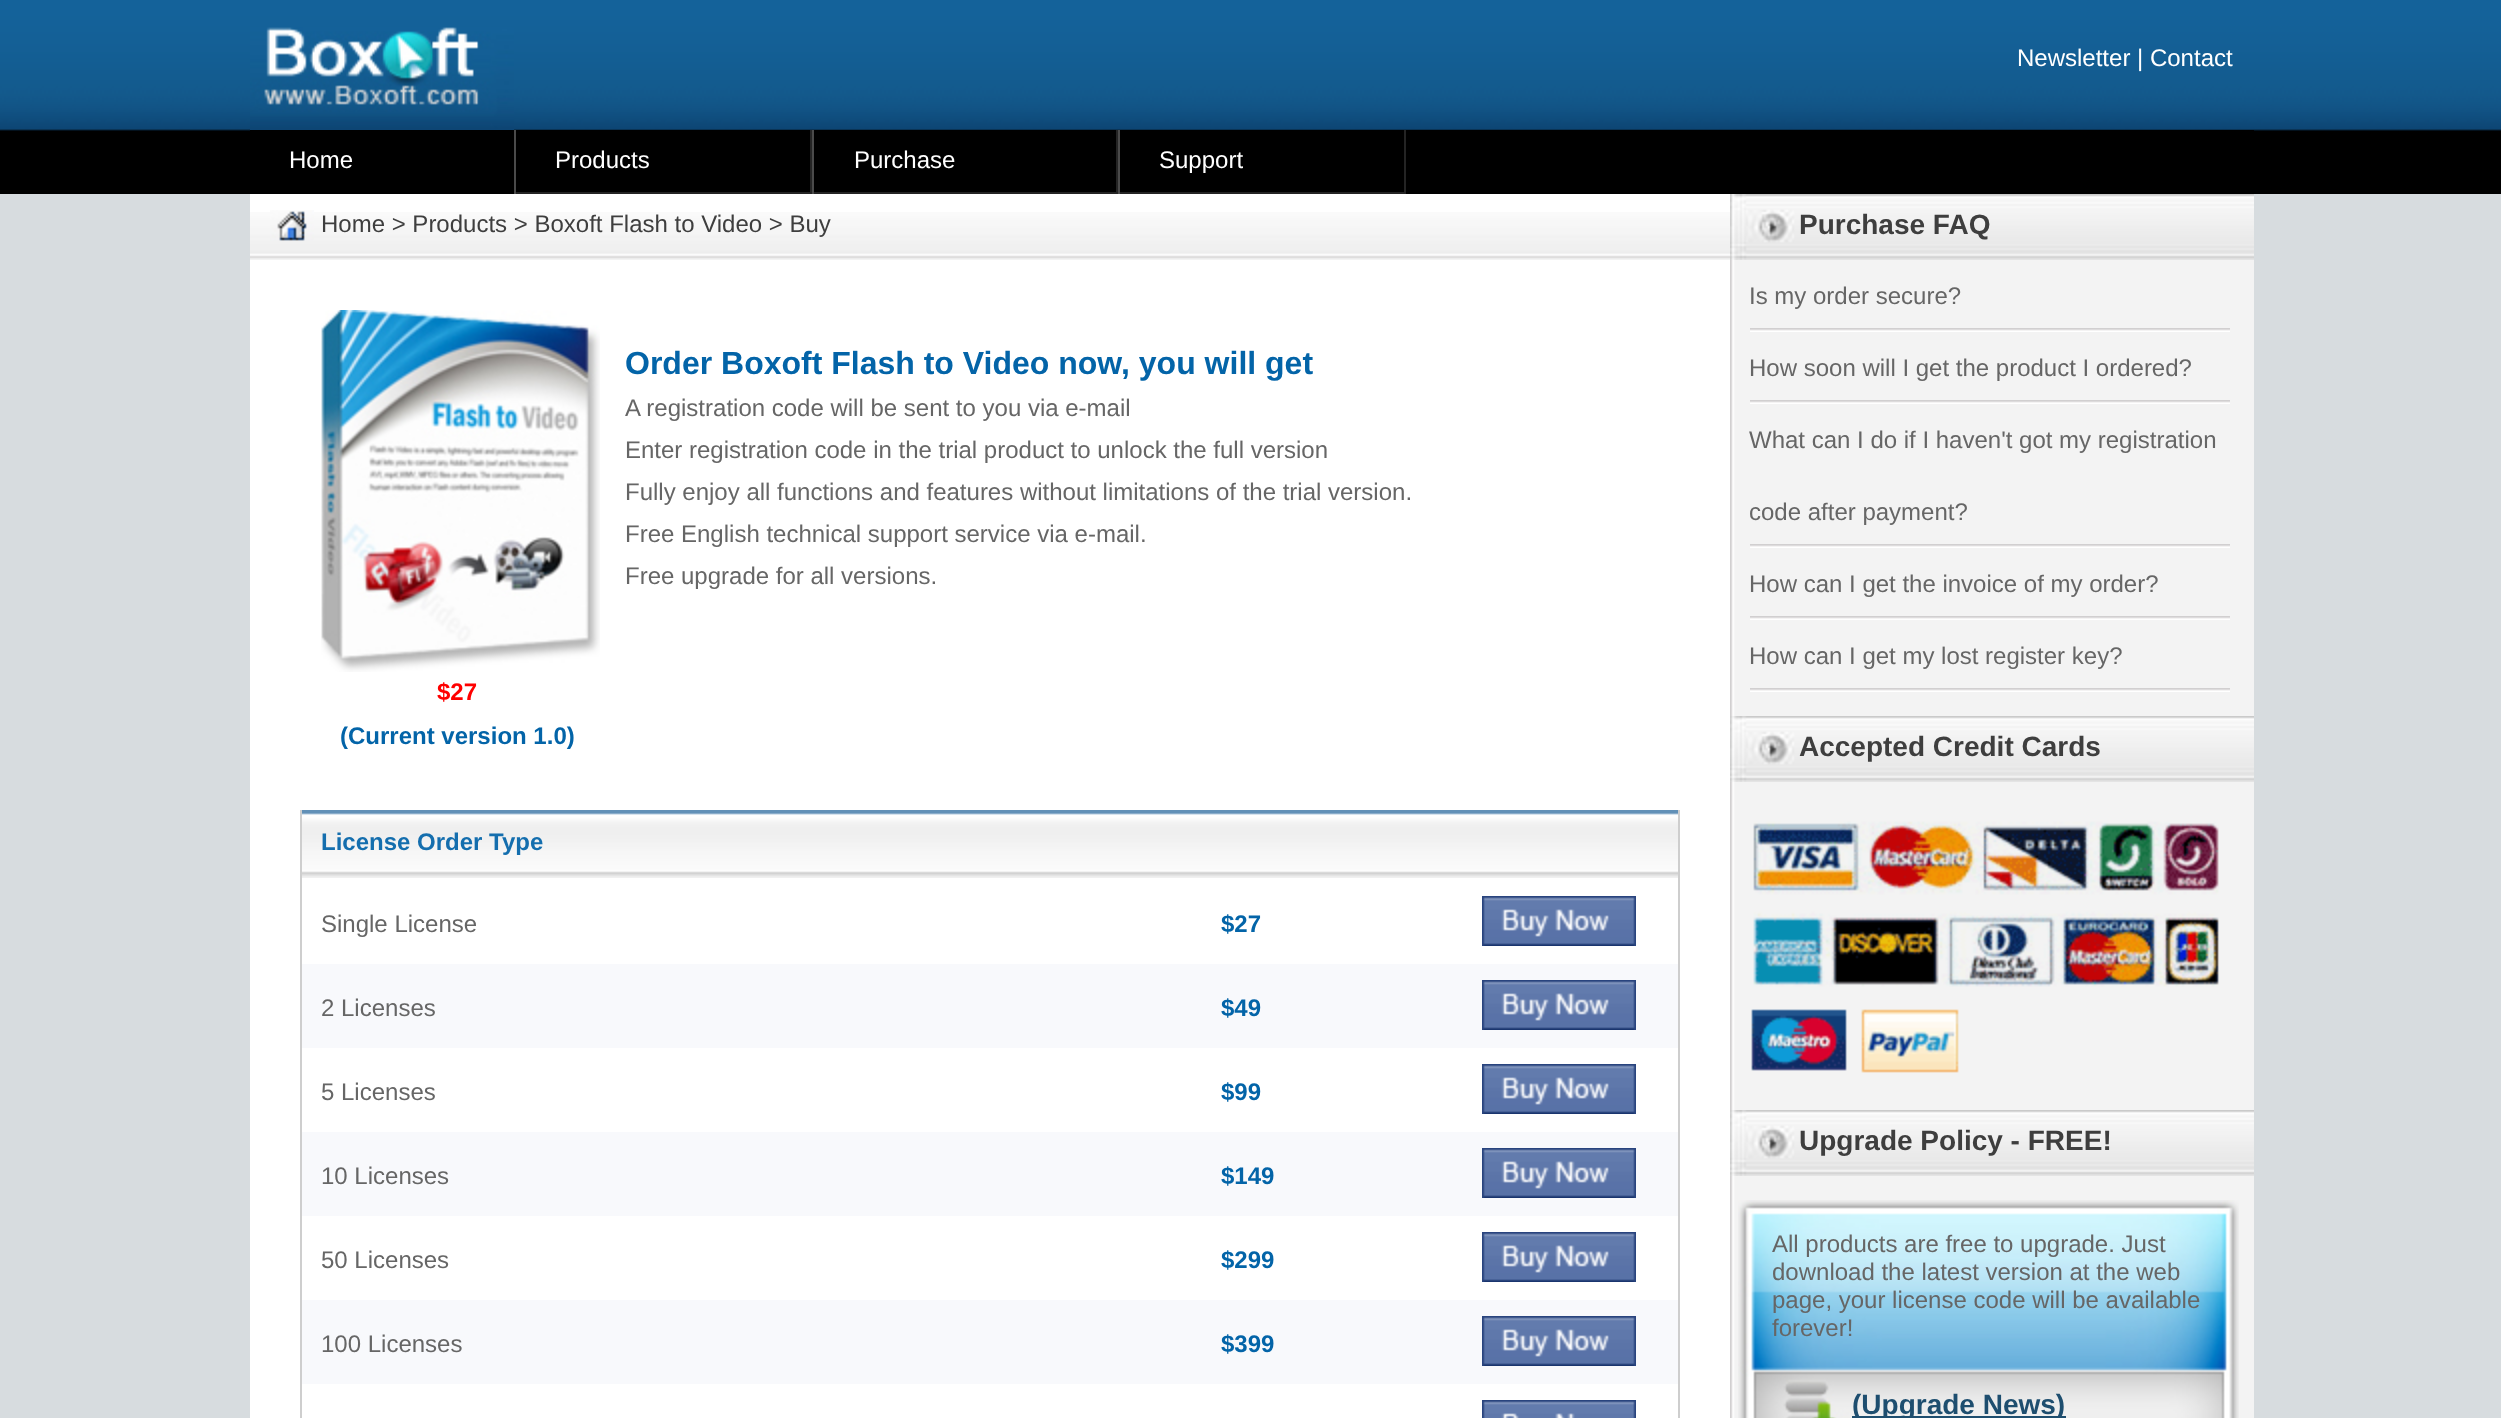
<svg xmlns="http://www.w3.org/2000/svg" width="2501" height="1418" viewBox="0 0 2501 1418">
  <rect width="100%" height="100%" fill="#d7dcdf"/>
  <image x="0" y="0" width="2501" height="194" href="img1.png"/>
  <image x="250" y="27" width="264" height="103" href="img2.png"/>
  <text x="2017" y="66" font-family="Liberation Sans" font-size="24" fill="#ffffff">Newsletter | Contact</text>
  <rect x="250" y="130" width="2004" height="1" fill="#000000"/>
  <text x="289" y="168" font-family="Liberation Sans" font-size="24" fill="#ffffff">Home</text>
  <rect x="810" y="130" width="2" height="64" fill="#242424"/>
  <rect x="514" y="192" width="298" height="2" fill="#242424"/>
  <rect x="514" y="130" width="2" height="64" fill="#4a4a4a"/>
  <text x="555" y="168" font-family="Liberation Sans" font-size="24" fill="#ffffff">Products</text>
  <rect x="1116" y="130" width="2" height="64" fill="#242424"/>
  <rect x="812" y="192" width="306" height="2" fill="#242424"/>
  <rect x="812" y="130" width="2" height="64" fill="#4a4a4a"/>
  <text x="854" y="168" font-family="Liberation Sans" font-size="24" fill="#ffffff">Purchase</text>
  <rect x="1404" y="130" width="2" height="64" fill="#242424"/>
  <rect x="1118" y="192" width="288" height="2" fill="#242424"/>
  <rect x="1118" y="130" width="2" height="64" fill="#4a4a4a"/>
  <text x="1159" y="168" font-family="Liberation Sans" font-size="24" fill="#ffffff">Support</text>
  <rect x="250" y="194" width="1480" height="1224" fill="#ffffff"/>
  <image x="250" y="212" width="1480" height="48" href="img3.png"/>
  <image x="270" y="210" width="44" height="31" href="img4.png"/>
  <text x="321" y="232" font-family="Liberation Sans" font-size="24" fill="#3e3e3e">Home &gt; Products &gt; Boxoft Flash to Video &gt; Buy</text>
  <text x="625" y="374" font-family="Liberation Sans" font-size="32" font-weight="bold" fill="#0364a8">Order Boxoft Flash to Video now, you will get</text>
  <text x="625" y="416" font-family="Liberation Sans" font-size="24" fill="#666666">A registration code will be sent to you via e-mail</text>
  <text x="625" y="458" font-family="Liberation Sans" font-size="24" fill="#666666">Enter registration code in the trial product to unlock the full version</text>
  <text x="625" y="500" font-family="Liberation Sans" font-size="24" fill="#666666">Fully enjoy all functions and features without limitations of the trial version.</text>
  <text x="625" y="542" font-family="Liberation Sans" font-size="24" fill="#666666">Free English technical support service via e-mail.</text>
  <text x="625" y="584" font-family="Liberation Sans" font-size="24" fill="#666666">Free upgrade for all versions.</text>
  <image x="321" y="310" width="279" height="362" href="img5.png"/>
  <text x="437" y="700" font-family="Liberation Sans" font-size="24" font-weight="bold" fill="#ff0000">$27</text>
  <text x="340" y="744" font-family="Liberation Sans" font-size="24" font-weight="bold" fill="#0364a8">(Current version 1.0)</text>
  <image x="302" y="810" width="1376" height="68" href="img6.png"/>
  <rect x="1678" y="810" width="2" height="608" fill="#cecece"/>
  <rect x="300" y="810" width="2" height="608" fill="#cecece"/>
  <text x="321" y="850" font-family="Liberation Sans" font-size="24" font-weight="bold" fill="#146eae">License Order Type</text>
  <text x="321" y="932" font-family="Liberation Sans" font-size="24" fill="#666666">Single License</text>
  <text x="1221" y="932" font-family="Liberation Sans" font-size="24" font-weight="bold" fill="#0364a8">$27</text>
  <image x="1482" y="896" width="154" height="50" href="img7.png"/>
  <rect x="302" y="964" width="1376" height="84" fill="#f8f9fc"/>
  <text x="321" y="1016" font-family="Liberation Sans" font-size="24" fill="#666666">2 Licenses</text>
  <text x="1221" y="1016" font-family="Liberation Sans" font-size="24" font-weight="bold" fill="#0364a8">$49</text>
  <image x="1482" y="980" width="154" height="50" href="img7.png"/>
  <text x="321" y="1100" font-family="Liberation Sans" font-size="24" fill="#666666">5 Licenses</text>
  <text x="1221" y="1100" font-family="Liberation Sans" font-size="24" font-weight="bold" fill="#0364a8">$99</text>
  <image x="1482" y="1064" width="154" height="50" href="img7.png"/>
  <rect x="302" y="1132" width="1376" height="84" fill="#f8f9fc"/>
  <text x="321" y="1184" font-family="Liberation Sans" font-size="24" fill="#666666">10 Licenses</text>
  <text x="1221" y="1184" font-family="Liberation Sans" font-size="24" font-weight="bold" fill="#0364a8">$149</text>
  <image x="1482" y="1148" width="154" height="50" href="img7.png"/>
  <text x="321" y="1268" font-family="Liberation Sans" font-size="24" fill="#666666">50 Licenses</text>
  <text x="1221" y="1268" font-family="Liberation Sans" font-size="24" font-weight="bold" fill="#0364a8">$299</text>
  <image x="1482" y="1232" width="154" height="50" href="img7.png"/>
  <rect x="302" y="1300" width="1376" height="84" fill="#f8f9fc"/>
  <text x="321" y="1352" font-family="Liberation Sans" font-size="24" fill="#666666">100 Licenses</text>
  <text x="1221" y="1352" font-family="Liberation Sans" font-size="24" font-weight="bold" fill="#0364a8">$399</text>
  <image x="1482" y="1316" width="154" height="50" href="img7.png"/>
  <image x="1482" y="1400" width="154" height="18" href="img8.png"/>
  <image x="1730" y="260" width="524" height="1158" href="img9.png"/>
  <image x="1730" y="194" width="524" height="66" href="img10.png"/>
  <text x="1799" y="234" font-family="Liberation Sans" font-size="28" font-weight="bold" fill="#3e3e3e">Purchase FAQ</text>
  <image x="1750" y="328" width="480" height="4" href="img11.png"/>
  <text x="1749" y="304" font-family="Liberation Sans" font-size="24" fill="#666666">Is my order secure?</text>
  <image x="1750" y="400" width="480" height="4" href="img11.png"/>
  <text x="1749" y="376" font-family="Liberation Sans" font-size="24" fill="#666666">How soon will I get the product I ordered?</text>
  <image x="1750" y="544" width="480" height="4" href="img11.png"/>
  <text x="1749" y="448" font-family="Liberation Sans" font-size="24" fill="#666666">What can I do if I haven't got my registration</text>
  <text x="1749" y="520" font-family="Liberation Sans" font-size="24" fill="#666666">code after payment?</text>
  <image x="1750" y="616" width="480" height="4" href="img11.png"/>
  <text x="1749" y="592" font-family="Liberation Sans" font-size="24" fill="#666666">How can I get the invoice of my order?</text>
  <image x="1750" y="688" width="480" height="4" href="img11.png"/>
  <text x="1749" y="664" font-family="Liberation Sans" font-size="24" fill="#666666">How can I get my lost register key?</text>
  <image x="1730" y="716" width="524" height="66" href="img10.png"/>
  <text x="1799" y="756" font-family="Liberation Sans" font-size="28" font-weight="bold" fill="#3e3e3e">Accepted Credit Cards</text>
  <image x="1751" y="821" width="468" height="252" href="img12.png"/>
  <image x="1730" y="1110" width="524" height="66" href="img10.png"/>
  <text x="1799" y="1150" font-family="Liberation Sans" font-size="28" font-weight="bold" fill="#3e3e3e">Upgrade Policy - FREE!</text>
  <image x="1738" y="1200" width="501" height="218" href="img13.png"/>
  <text x="1772" y="1252" font-family="Liberation Sans" font-size="24" fill="#666666">All products are free to upgrade. Just</text>
  <text x="1772" y="1280" font-family="Liberation Sans" font-size="24" fill="#666666">download the latest version at the web</text>
  <text x="1772" y="1308" font-family="Liberation Sans" font-size="24" fill="#666666">page, your license code will be available</text>
  <text x="1772" y="1336" font-family="Liberation Sans" font-size="24" fill="#666666">forever!</text>
  <rect x="1852" y="1416" width="214" height="2" fill="#1e4e6f"/>
  <text x="1852" y="1414" font-family="Liberation Sans" font-size="28" font-weight="bold" fill="#1e4e6f">(Upgrade News)</text>
</svg>
